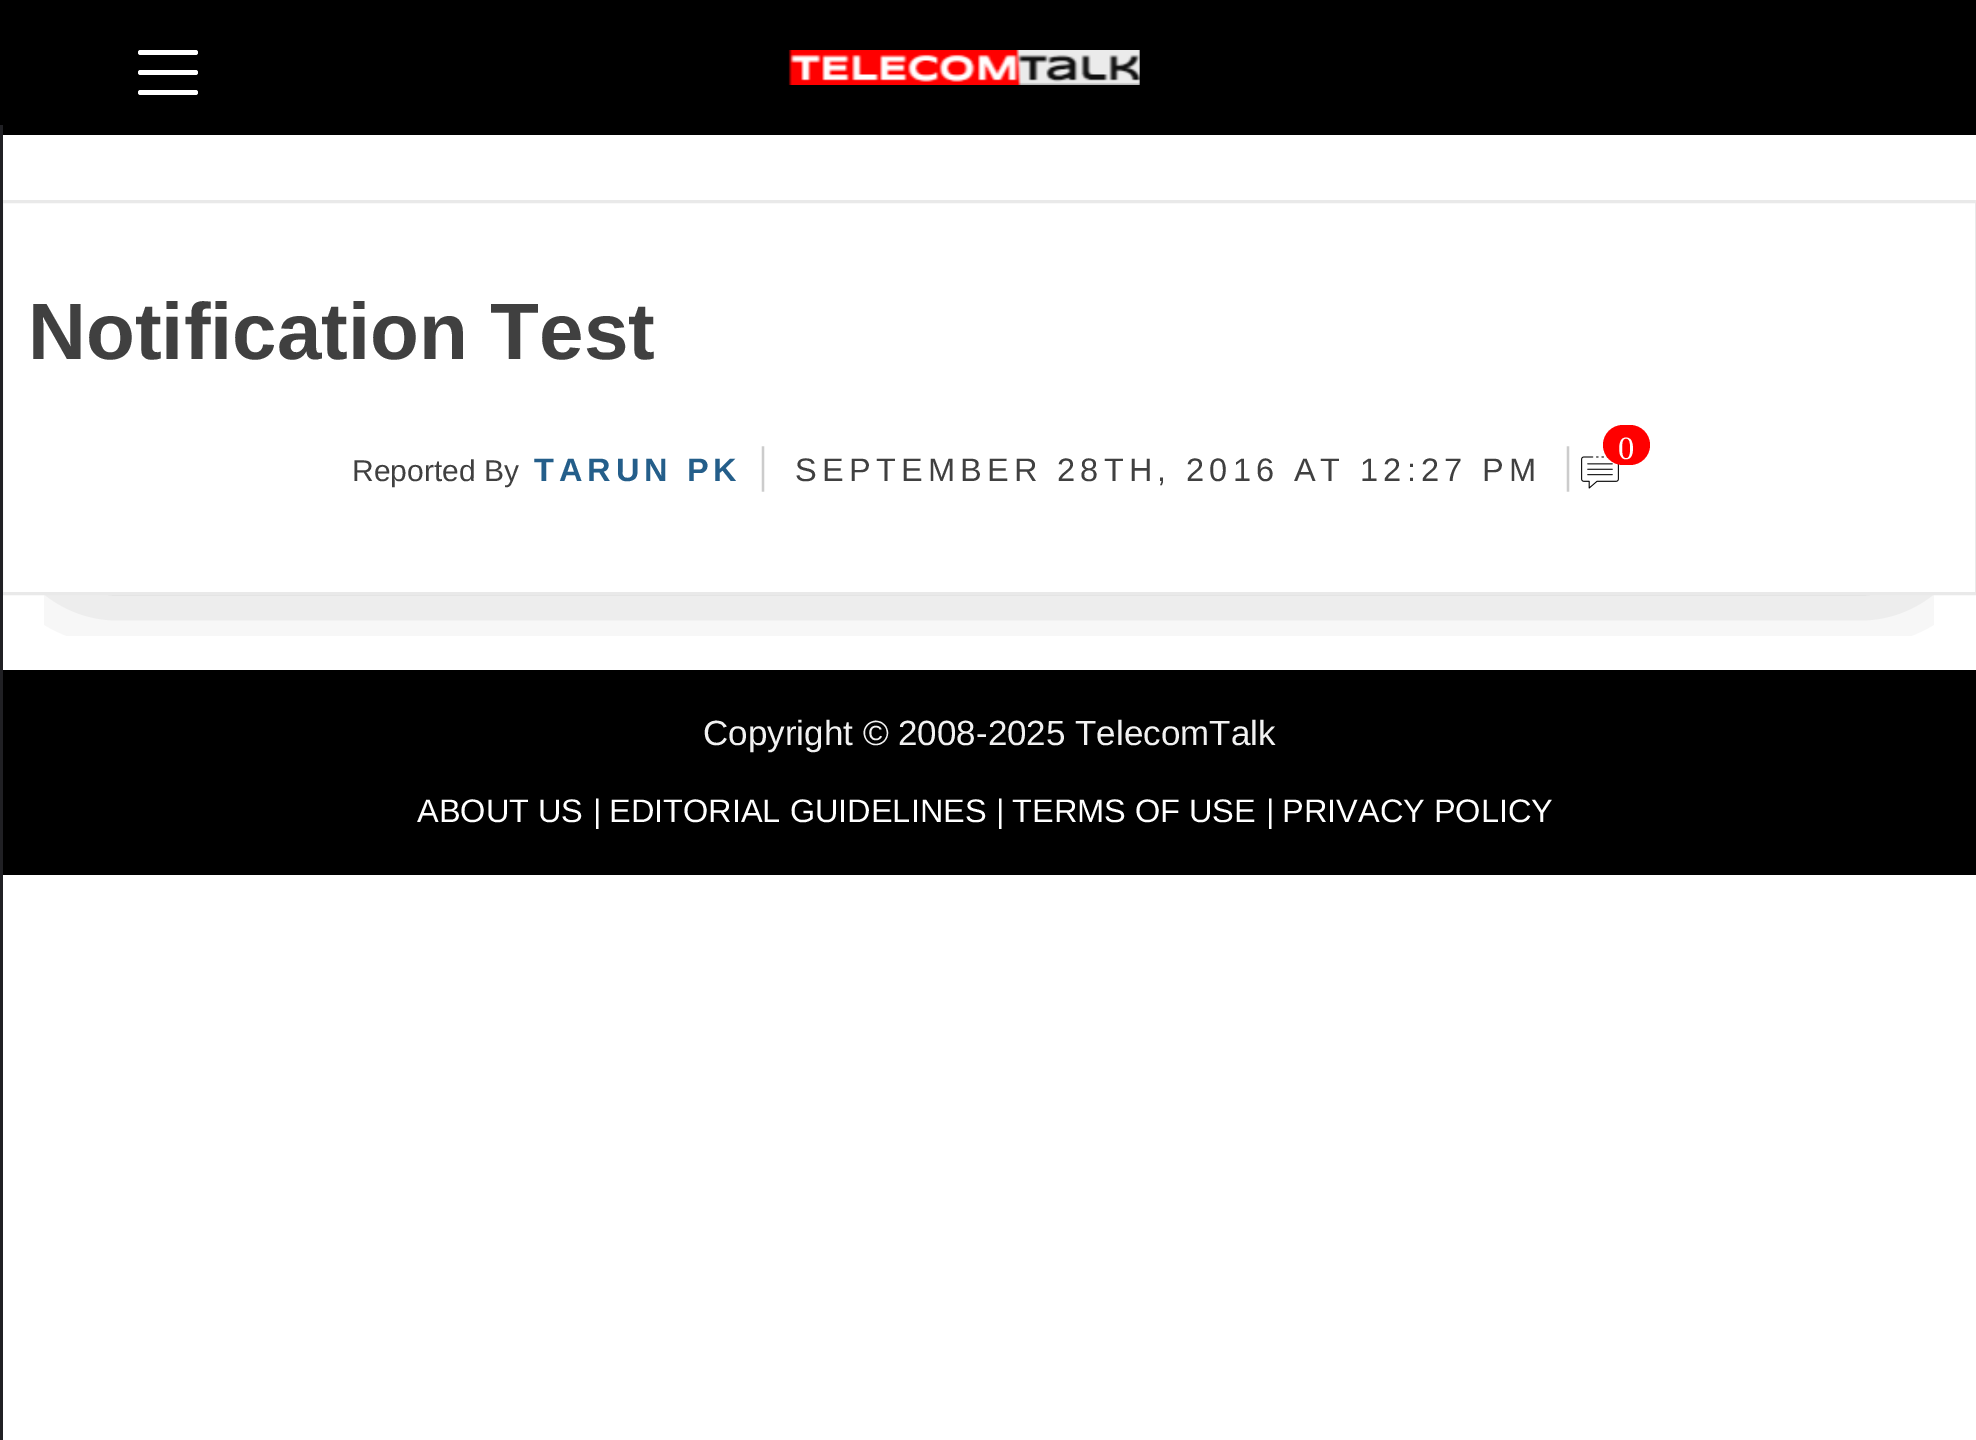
%!PS
<< /PageSize [1976 1440] /PageUsesTransparency true >> setpagedevice
/alpha { dup .setfillconstantalpha .setstrokeconstantalpha } def
/roundrect { 5 dict begin { /r /h /w /y /x } { exch def } forall
  x r add y moveto x w add y 2 copy h add r arct x w add y h add x 1 index r arct
  x y h add x y r arct x y 2 copy exch w add exch r arct closepath end } def
/shadow { 12 dict begin { /a /b /q /h /w /y /x } { exch def } forall gsave /was 0 def
  9 -2 -9 { dup b mul 4 div /e exch def 1 sub .425 mul 2.718 exch exp 1 add a .99 .min exch div /now exch def
    1 1 now sub 1 was sub div sub alpha /was now def
    w h .min e 2 mul add 0 gt { x e sub y e sub w e 2 mul add h e 2 mul add
      q e add b .6 mul add w h .min 2 div e add .min 0 .max roundrect fill } if } for grestore end } def
/picture { 5 dict begin { /h /w /y /x /name } { exch def } forall
  gsave x y translate w h scale
  w h 8 [w 0 0 h 0 0] name (r) file false 3 colorimage grestore end } def
0 .pushpdf14devicefilter
0 1440 translate 1 -1 scale
4 setmiterlimit
1 setgray
0 0 1976 1440 rectfill
0 setgray
0 0 1976 135 rectfill
1 setgray
138 50 60 5 2.5 roundrect fill
138 70 60 5 2.5 roundrect fill
138 90 60 5 2.5 roundrect fill
gsave
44 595 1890 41 rectclip
0 setgray
88 313 1802 220 0 50 1 shadow
grestore
0.914 setgray
3 setlinewidth
1.5 201.5 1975 392 rectstroke
0.125 0.125 0.141 setrgbcolor
0 125 3 1315 rectfill
(img1.rgb) 788 50 352 35 picture
/LiberationSans-Bold [80 0 0 -80 0 0] selectfont
0.251 setgray
28 359 moveto (Notification Test) show
/LiberationSans-Regular [30 0 0 -30 0 0] selectfont
352 481 moveto (Reported By) show
/LiberationSans-Bold [32.5 0 0 -32.5 0 0] selectfont
0.141 0.369 0.541 setrgbcolor
534 481 moveto 5 0 (TARUN PK) ashow
/LiberationSerif-Regular [50 0 0 -50 0 0] selectfont
0.8 setgray
758 481 moveto 5.25 0 (|) ashow
/LiberationSans-Regular [32.5 0 0 -32.5 0 0] selectfont
0.251 setgray
795 481 moveto 5.25 0 (SEPTEMBER 28TH, 2016 AT 12:27 PM) ashow
/LiberationSerif-Regular [50 0 0 -50 0 0] selectfont
0.8 setgray
1563 481 moveto 5.25 0 (|) ashow
(img2.rgb) 1581 456 38 33 picture
1 0 0 setrgbcolor
1603 425 47 40 20 roundrect fill
/LiberationSerif-Regular [32.5 0 0 -32.5 0 0] selectfont
1 setgray
1618 459 moveto (0) show
0 setgray
3 670 1973 205 rectfill
/LiberationSans-Regular [35 0 0 -35 0 0] selectfont
0.945 setgray
703 745 moveto (Copyright © 2008-2025 TelecomTalk) show
/LiberationSans-Regular [32.5 0 0 -32.5 0 0] selectfont
1 setgray
417 822 moveto (ABOUT US) show
593 822 moveto (|) show
609 822 moveto (EDITORIAL GUIDELINES) show
996 822 moveto (|) show
1012 822 moveto (TERMS OF USE) show
1266 822 moveto (|) show
1282 822 moveto (PRIVACY POLICY) show
.poppdf14devicefilter showpage
